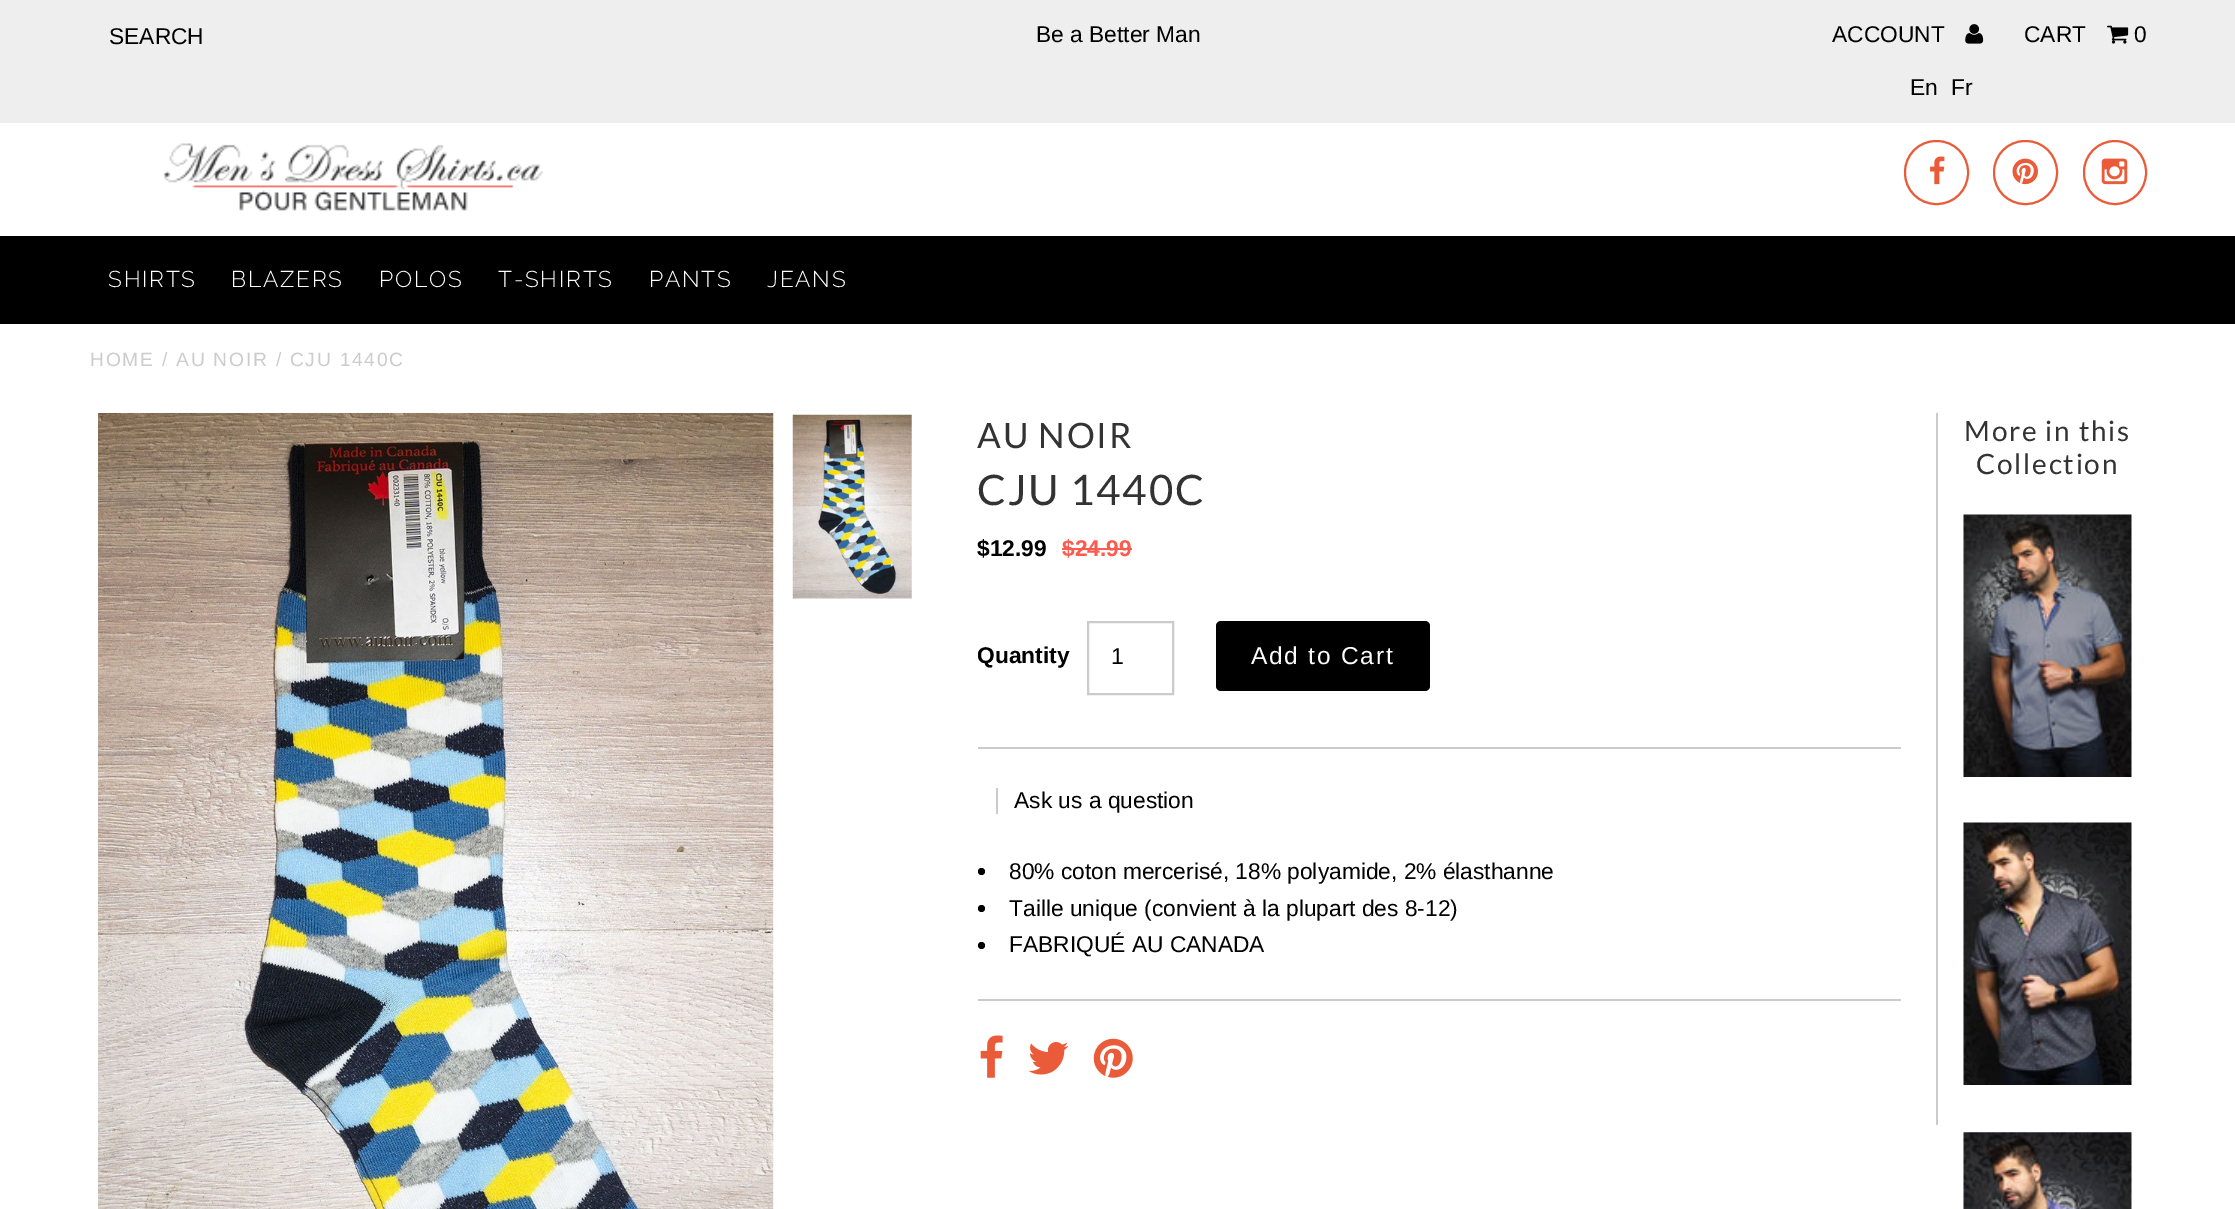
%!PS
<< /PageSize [2235 1209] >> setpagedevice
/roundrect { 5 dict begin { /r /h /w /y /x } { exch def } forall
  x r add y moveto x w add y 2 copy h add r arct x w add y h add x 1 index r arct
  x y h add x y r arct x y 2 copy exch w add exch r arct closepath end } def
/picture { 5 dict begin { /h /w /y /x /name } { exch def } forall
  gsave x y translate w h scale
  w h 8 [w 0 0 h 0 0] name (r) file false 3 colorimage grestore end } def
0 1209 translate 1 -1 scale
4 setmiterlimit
1 setgray
0 0 2235 1209 rectfill
0.933 setgray
0 0 2235 123 rectfill
/LiberationSans-Regular [22.75 0 0 -22.75 0 0] selectfont
0 setgray
109 44 moveto (SEARCH) show
1036 42 moveto (Be a Better Man) show
1832 42 moveto (ACCOUNT) show
(img1.rgb) 1965 24 19 20 picture
2024 42 moveto (CART) show
(img2.rgb) 2107 25 22 19 picture
2134 42 moveto (0) show
1910 95 moveto (En) show
1951 95 moveto (Fr) show
(img3.rgb) 164 143 379 68 picture
0.918 0.357 0.227 setrgbcolor
2 setlinewidth
1905 141 63 63 31 roundrect stroke
(img4.rgb) 1930 156 15 29 picture
1994 141 63 63 31 roundrect stroke
(img5.rgb) 2012 158 26 27 picture
2084 141 62 63 31 roundrect stroke
(img6.rgb) 2101 158 27 27 picture
0 setgray
0 236 2235 88 rectfill
/Raleway-Light [22.75 0 0 -22.75 0 0] selectfont
1 setgray
108 287 moveto 1.75 0 (SHIRTS) ashow
231 287 moveto 1.75 0 (BLAZERS) ashow
379 287 moveto 1.75 0 (POLOS) ashow
498 287 moveto 1.75 0 (T-SHIRTS) ashow
649 287 moveto 1.75 0 (PANTS) ashow
767 287 moveto 1.75 0 (JEANS) ashow
/LiberationSans-Regular [19.25 0 0 -19.25 0 0] selectfont
0.8 setgray
90 366 moveto 1.75 0 (HOME / AU NOIR / CJU 1440C) ashow
(img7.rgb) 98 413 676 796 picture
(img8.rgb) 792 414 120 185 picture
0.796 setgray
1936 413 2 712 rectfill
/Lato-Regular [35 0 0 -35 0 0] selectfont
0.2 setgray
977 448 moveto 1.75 0 (AU NOIR) ashow
/Lato-Regular [42 0 0 -42 0 0] selectfont
977 505 moveto 1.75 0 (CJU 1440C) ashow
/LiberationSans-Bold [22.75 0 0 -22.75 0 0] selectfont
0 setgray
977 556 moveto ($12.99) show
0.988 0.357 0.31 setrgbcolor
1062 556 moveto ($24.99) show
1062 548 70 2 rectfill
0.796 setgray
978 747 923 2 rectfill
0 setgray
977 663 moveto (Quantity) show
0.796 setgray
1088 622 85 72 rectstroke
/LiberationSans-Regular [23 0 0 -23 0 0] selectfont
0 setgray
1111 664 moveto (1) show
1216 621 214 70 5 roundrect fill
/LiberationSans-Regular [24.5 0 0 -24.5 0 0] selectfont
1 setgray
1251 664 moveto 1.75 0 (Add to Cart) ashow
0.796 setgray
996 788 2 26 rectfill
/LiberationSans-Regular [22.75 0 0 -22.75 0 0] selectfont
0 setgray
1014 808 moveto (Ask us a question) show
newpath 981.5 871.5 3.5 0 360 arc closepath fill
1009 879 moveto (80% coton mercerisé, 18% polyamide, 2% élasthanne) show
newpath 981.5 908.5 3.5 0 360 arc closepath fill
1009 916 moveto (Taille unique \(convient à la plupart des 8-12\)) show
newpath 981.5 945.5 3.5 0 360 arc closepath fill
1009 952 moveto (FABRIQUÉ AU CANADA) show
0.796 setgray
978 999 923 2 rectfill
(img9.rgb) 980 1035 23 43 picture
(img10.rgb) 1028 1042 41 33 picture
(img11.rgb) 1093 1038 40 40 picture
/Lato-Regular [28 0 0 -28 0 0] selectfont
0.2 setgray
1964 441 moveto 1.75 0 (More in this) ashow
1976 474 moveto 1.75 0 (Collection) ashow
(img12.rgb) 1963 514 169 263 picture
(img13.rgb) 1963 822 169 263 picture
(img14.rgb) 1963 1132 169 77 picture
showpage
